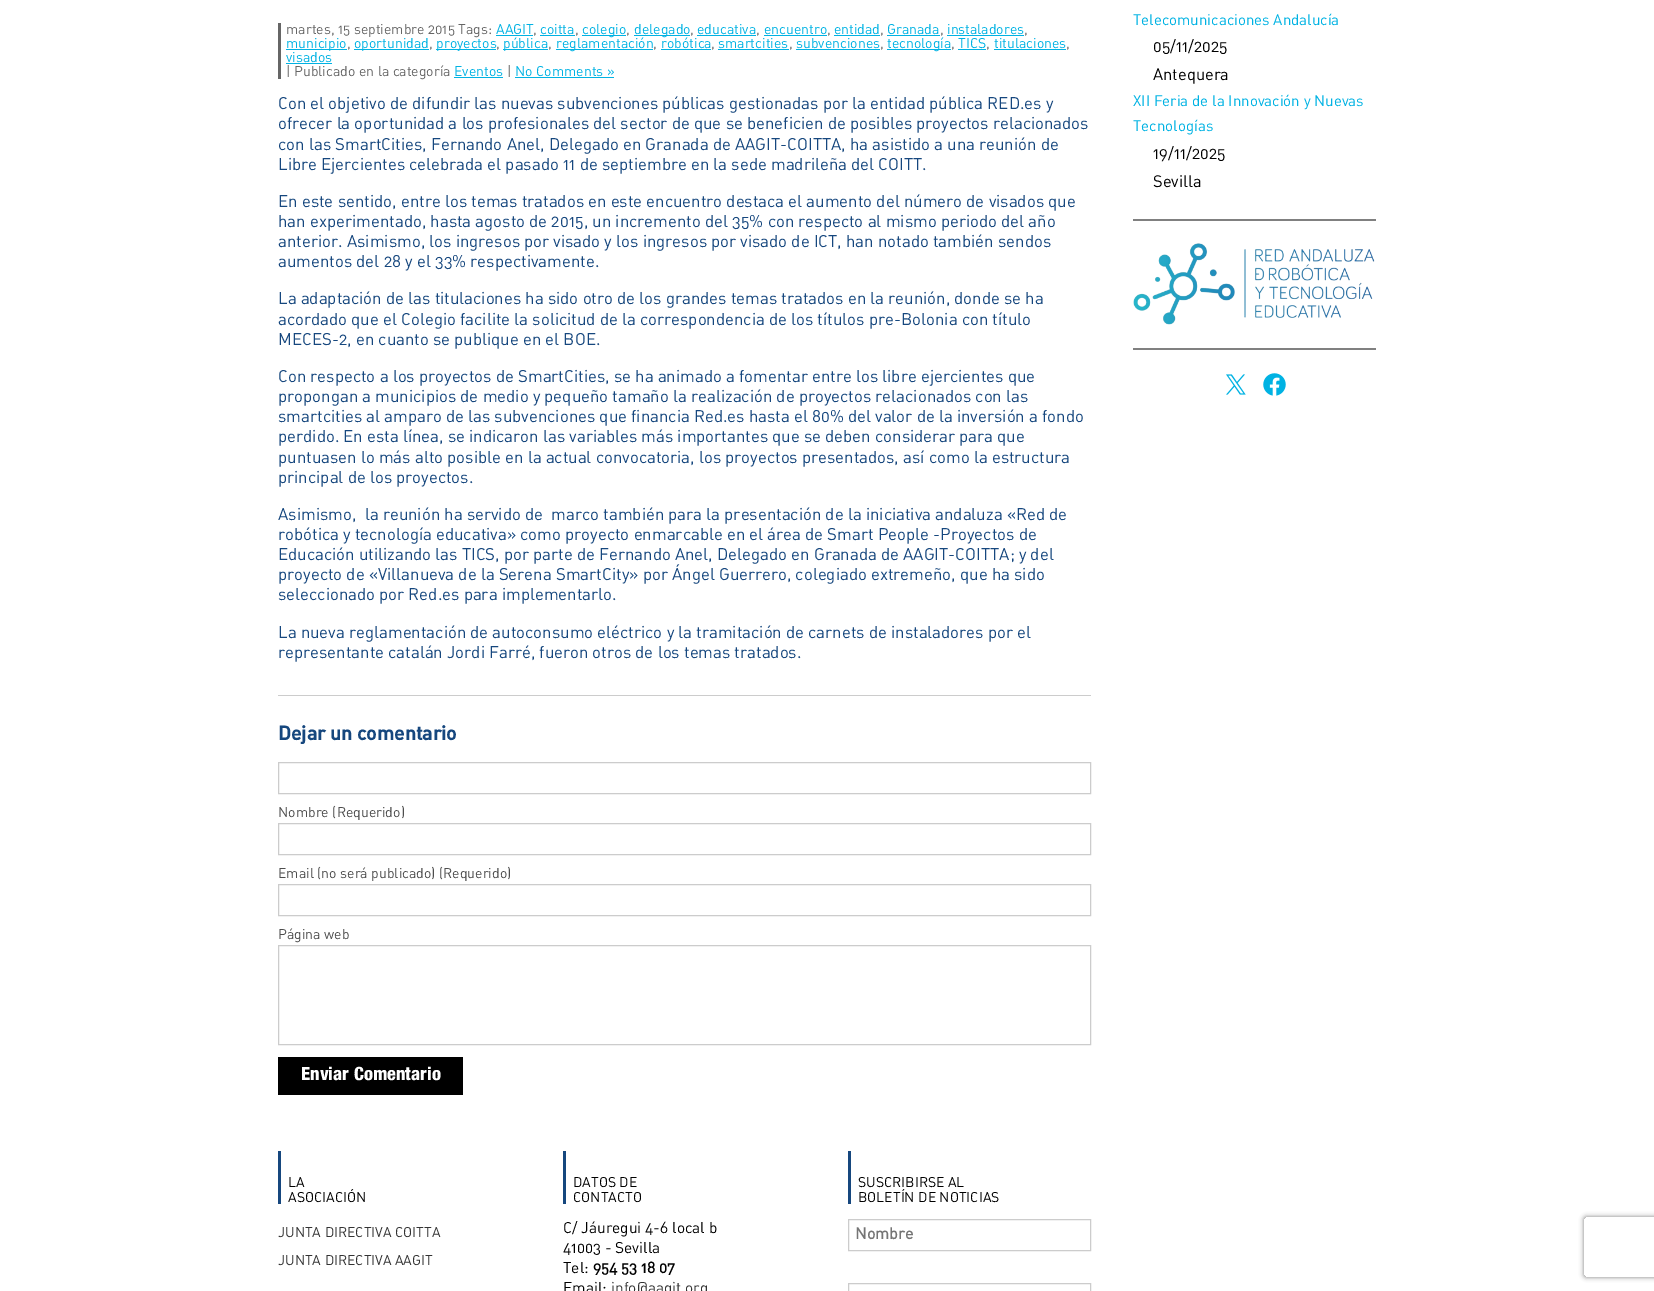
%!PS
<< /PageSize [1654 1291] /PageUsesTransparency true >> setpagedevice
/alpha { dup .setfillconstantalpha .setstrokeconstantalpha } def
/roundrect { 5 dict begin { /r /h /w /y /x } { exch def } forall
  x r add y moveto x w add y 2 copy h add r arct x w add y h add x 1 index r arct
  x y h add x y r arct x y 2 copy exch w add exch r arct closepath end } def
/shadow { 12 dict begin { /a /b /q /h /w /y /x } { exch def } forall gsave /was 0 def
  9 -2 -9 { dup b mul 4 div /e exch def 1 sub .425 mul 2.718 exch exp 1 add a .99 .min exch div /now exch def
    1 1 now sub 1 was sub div sub alpha /was now def
    w h .min e 2 mul add 0 gt { x e sub y e sub w e 2 mul add h e 2 mul add
      q e add b .6 mul add w h .min 2 div e add .min 0 .max roundrect fill } if } for grestore end } def
/picture { 5 dict begin { /h /w /y /x /name } { exch def } forall
  gsave x y translate w h scale
  w h 8 [w 0 0 h 0 0] name (r) file false 3 colorimage grestore end } def
0 .pushpdf14devicefilter
0 1291 translate 1 -1 scale
4 setmiterlimit
1 setgray
0 0 1654 1291 rectfill
0.4 setgray
278 23 3 56 rectfill
/DIN-Regular [14 0 0 -14 0 0] selectfont
286 34 moveto (martes, 15 septiembre 2015 Tags:) show
0 0.698 0.89 setrgbcolor
496 34 moveto (AAGIT) show
496 35 37 1 rectfill
0.4 setgray
533 34 moveto (,) show
0 0.698 0.89 setrgbcolor
540 34 moveto (coitta) show
540 35 35 1 rectfill
0.4 setgray
575 34 moveto (,) show
0 0.698 0.89 setrgbcolor
582 35 44 1 rectfill
582 34 moveto (colegio) show
0.4 setgray
626 34 moveto (,) show
0 0.698 0.89 setrgbcolor
634 35 56 1 rectfill
634 34 moveto (delegado) show
0.4 setgray
690 34 moveto (,) show
0 0.698 0.89 setrgbcolor
697 34 moveto (educativa) show
697 35 59 1 rectfill
0.4 setgray
756 34 moveto (,) show
0 0.698 0.89 setrgbcolor
764 34 moveto (encuentro) show
764 35 63 1 rectfill
0.4 setgray
827 34 moveto (,) show
0 0.698 0.89 setrgbcolor
834 34 moveto (entidad) show
834 35 46 1 rectfill
0.4 setgray
880 34 moveto (,) show
0 0.698 0.89 setrgbcolor
887 34 moveto (Granada) show
887 35 53 1 rectfill
0.4 setgray
940 34 moveto (,) show
0 0.698 0.89 setrgbcolor
947 34 moveto (instaladores) show
947 35 77 1 rectfill
0.4 setgray
1024 34 moveto (,) show
0 0.698 0.89 setrgbcolor
286 49 61 1 rectfill
286 48 moveto (municipio) show
0.4 setgray
347 48 moveto (,) show
0 0.698 0.89 setrgbcolor
354 49 75 1 rectfill
354 48 moveto (oportunidad) show
0.4 setgray
429 48 moveto (,) show
0 0.698 0.89 setrgbcolor
436 49 60 1 rectfill
436 48 moveto (proyectos) show
0.4 setgray
496 48 moveto (,) show
0 0.698 0.89 setrgbcolor
503 49 45 1 rectfill
503 48 moveto (pública) show
0.4 setgray
548 48 moveto (,) show
0 0.698 0.89 setrgbcolor
556 49 97 1 rectfill
556 48 moveto (reglamentación) show
0.4 setgray
653 48 moveto (,) show
0 0.698 0.89 setrgbcolor
661 48 moveto (robótica) show
661 49 50 1 rectfill
0.4 setgray
711 48 moveto (,) show
0 0.698 0.89 setrgbcolor
718 48 moveto (smartcities) show
718 49 71 1 rectfill
0.4 setgray
789 48 moveto (,) show
0 0.698 0.89 setrgbcolor
796 48 moveto (subvenciones) show
796 49 84 1 rectfill
0.4 setgray
880 48 moveto (,) show
0 0.698 0.89 setrgbcolor
887 49 64 1 rectfill
887 48 moveto (tecnología) show
0.4 setgray
951 48 moveto (,) show
0 0.698 0.89 setrgbcolor
958 48 moveto (TICS) show
958 49 28 1 rectfill
0.4 setgray
986 48 moveto (,) show
0 0.698 0.89 setrgbcolor
994 48 moveto (titulaciones) show
994 49 72 1 rectfill
0.4 setgray
1066 48 moveto (,) show
0 0.698 0.89 setrgbcolor
286 62 moveto (visados) show
286 63 46 1 rectfill
0.4 setgray
286 76 moveto (| Publicado en la categoría) show
0 0.698 0.89 setrgbcolor
454 76 moveto (Eventos) show
454 77 49 1 rectfill
0.4 setgray
507 76 moveto (|) show
0 0.698 0.89 setrgbcolor
515 76 moveto (No Comments ») show
515 77 99 1 rectfill
0.8 setgray
278 695 813 1 rectfill
/DIN-Regular [16.8 0 0 -16.8 0 0] selectfont
0.086 0.278 0.494 setrgbcolor
278 109 moveto (Con el objetivo de difundir las nuevas subvenciones públicas gestionadas por la entidad pública RED.es y) show
278 129 moveto (ofrecer la oportunidad a los profesionales del sector de que se beneficien de posibles proyectos relacionados) show
278 150 moveto (con las SmartCities, Fernando Anel, Delegado en Granada de AAGIT-COITTA, ha asistido a una reunión de) show
278 170 moveto (Libre Ejercientes celebrada el pasado 11 de septiembre en la sede madrileña del COITT.) show
278 207 moveto (En este sentido, entre los temas tratados en este encuentro destaca el aumento del número de visados que) show
278 227 moveto (han experimentado, hasta agosto de 2015, un incremento del 35% con respecto al mismo periodo del año) show
278 247 moveto (anterior. Asimismo, los ingresos por visado y los ingresos por visado de ICT, han notado también sendos) show
278 267 moveto (aumentos del 28 y el 33% respectivamente.) show
278 304 moveto (La adaptación de las titulaciones ha sido otro de los grandes temas tratados en la reunión, donde se ha) show
278 325 moveto (acordado que el Colegio facilite la solicitud de la correspondencia de los títulos pre-Bolonia con título) show
278 345 moveto (MECES-2, en cuanto se publique en el BOE.) show
278 382 moveto (Con respecto a los proyectos de SmartCities, se ha animado a fomentar entre los libre ejercientes que) show
278 402 moveto (propongan a municipios de medio y pequeño tamaño la realización de proyectos relacionados con las) show
278 422 moveto (smartcities al amparo de las subvenciones que financia Red.es hasta el 80% del valor de la inversión a fondo) show
278 442 moveto (perdido. En esta línea, se indicaron las variables más importantes que se deben considerar para que) show
278 463 moveto (puntuasen lo más alto posible en la actual convocatoria, los proyectos presentados, así como la estructura) show
278 483 moveto (principal de los proyectos.) show
278 520 moveto (Asimismo,  la reunión ha servido de  marco también para la presentación de la iniciativa andaluza «Red de) show
278 540 moveto (robótica y tecnología educativa» como proyecto enmarcable en el área de Smart People -Proyectos de) show
278 560 moveto (Educación utilizando las TICS, por parte de Fernando Anel, Delegado en Granada de AAGIT-COITTA; y del) show
278 580 moveto (proyecto de «Villanueva de la Serena SmartCity» por Ángel Guerrero, colegiado extremeño, que ha sido) show
278 600 moveto (seleccionado por Red.es para implementarlo.) show
278 638 moveto (La nueva reglamentación de autoconsumo eléctrico y la tramitación de carnets de instaladores por el) show
278 658 moveto (representante catalán Jordi Farré, fueron otros de los temas tratados.) show
/DIN-Bold [19.5 0 0 -19.5 0 0] selectfont
278 740 moveto (Dejar un comentario) show
0.8 setgray
278.5 762.5 812 31 rectstroke
/DIN-Regular [14 0 0 -14 0 0] selectfont
0.302 setgray
278 817 moveto (Nombre \(Requerido\)) show
0.8 setgray
278.5 823.5 812 31 rectstroke
0.302 setgray
278 878 moveto (Email \(no será publicado\) \(Requerido\)) show
0.8 setgray
278.5 884.5 812 31 rectstroke
0.302 setgray
278 939 moveto (Página web) show
0.8 setgray
278.5 945.5 812 99 rectstroke
0 setgray
278 1057 185 38 rectfill
/HelveticaNeue-Bold [18.25 0 0 -18.25 0 0] selectfont
1 setgray
301 1080 moveto (Enviar Comentario) show
/DIN-Regular [15.1 0 0 -15.1 0 0] selectfont
0 0.698 0.89 setrgbcolor
1133 25 moveto (Telecomunicaciones Andalucía) show
/DIN-Regular [16.5 0 0 -16.5 0 0] selectfont
0 setgray
1153 52 moveto (05/11/2025) show
1153 80 moveto (Antequera) show
/DIN-Regular [15.1 0 0 -15.1 0 0] selectfont
0 0.698 0.89 setrgbcolor
1133 106 moveto (XII Feria de la Innovación y Nuevas) show
1133 131 moveto (Tecnologías) show
/DIN-Regular [16.5 0 0 -16.5 0 0] selectfont
0 setgray
1153 159 moveto (19/11/2025) show
1153 187 moveto (Sevilla) show
0.502 setgray
1133 219 243 2 rectfill
(img1.rgb) 1133 243 242 82 picture
1133 348 243 2 rectfill
(img2.rgb) 1226 374 20 21 picture
(img3.rgb) 1263 373 23 23 picture
0.086 0.278 0.494 setrgbcolor
278 1151 3 53 rectfill
/DIN-Regular [14 0 0 -14 0 0] selectfont
0 setgray
288 1187 moveto (LA) show
288 1202 moveto (ASOCIACIÓN) show
0.2 setgray
278 1237 moveto (JUNTA DIRECTIVA COITTA) show
278 1265 moveto (JUNTA DIRECTIVA AAGIT) show
0.086 0.278 0.494 setrgbcolor
563 1151 3 53 rectfill
0 setgray
573 1187 moveto (DATOS DE) show
573 1202 moveto (CONTACTO) show
/DIN-Regular [15.4 0 0 -15.4 0 0] selectfont
563 1233 moveto (C/ Jáuregui 4-6 local b) show
563 1253 moveto (41003 - Sevilla) show
563 1273 moveto (Tel:) show
/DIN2-Bold [15.4 0 0 -15.4 0 0] selectfont
593 1273 moveto (954 53 18 07) show
/DIN-Regular [15.4 0 0 -15.4 0 0] selectfont
563 1293 moveto (Email:) show
0.2 setgray
611 1293 moveto (info@aagit.org) show
0.086 0.278 0.494 setrgbcolor
848 1151 3 53 rectfill
/DIN-Regular [14 0 0 -14 0 0] selectfont
0 setgray
858 1187 moveto (SUSCRIBIRSE AL) show
858 1202 moveto (BOLETÍN DE NOTICIAS) show
0.8 setgray
848.5 1219.5 242 31 rectstroke
/DIN2-Bold [16 0 0 -16 0 0] selectfont
0.459 setgray
855 1239 moveto (Nombre) show
0.8 setgray
848.5 1283.5 242 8 rectstroke
gsave
newpath 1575 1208 moveto 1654 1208 lineto 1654 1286 lineto 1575 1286 lineto closepath 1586 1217 moveto 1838 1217 lineto 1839 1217 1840 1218 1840 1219 curveto 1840 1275 lineto 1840 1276 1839 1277 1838 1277 curveto 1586 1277 lineto 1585 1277 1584 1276 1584 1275 curveto 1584 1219 lineto 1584 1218 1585 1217 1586 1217 curveto closepath eoclip newpath
0.502 setgray
1584 1217 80 60 2 2.5 1 shadow
grestore
.poppdf14devicefilter showpage
